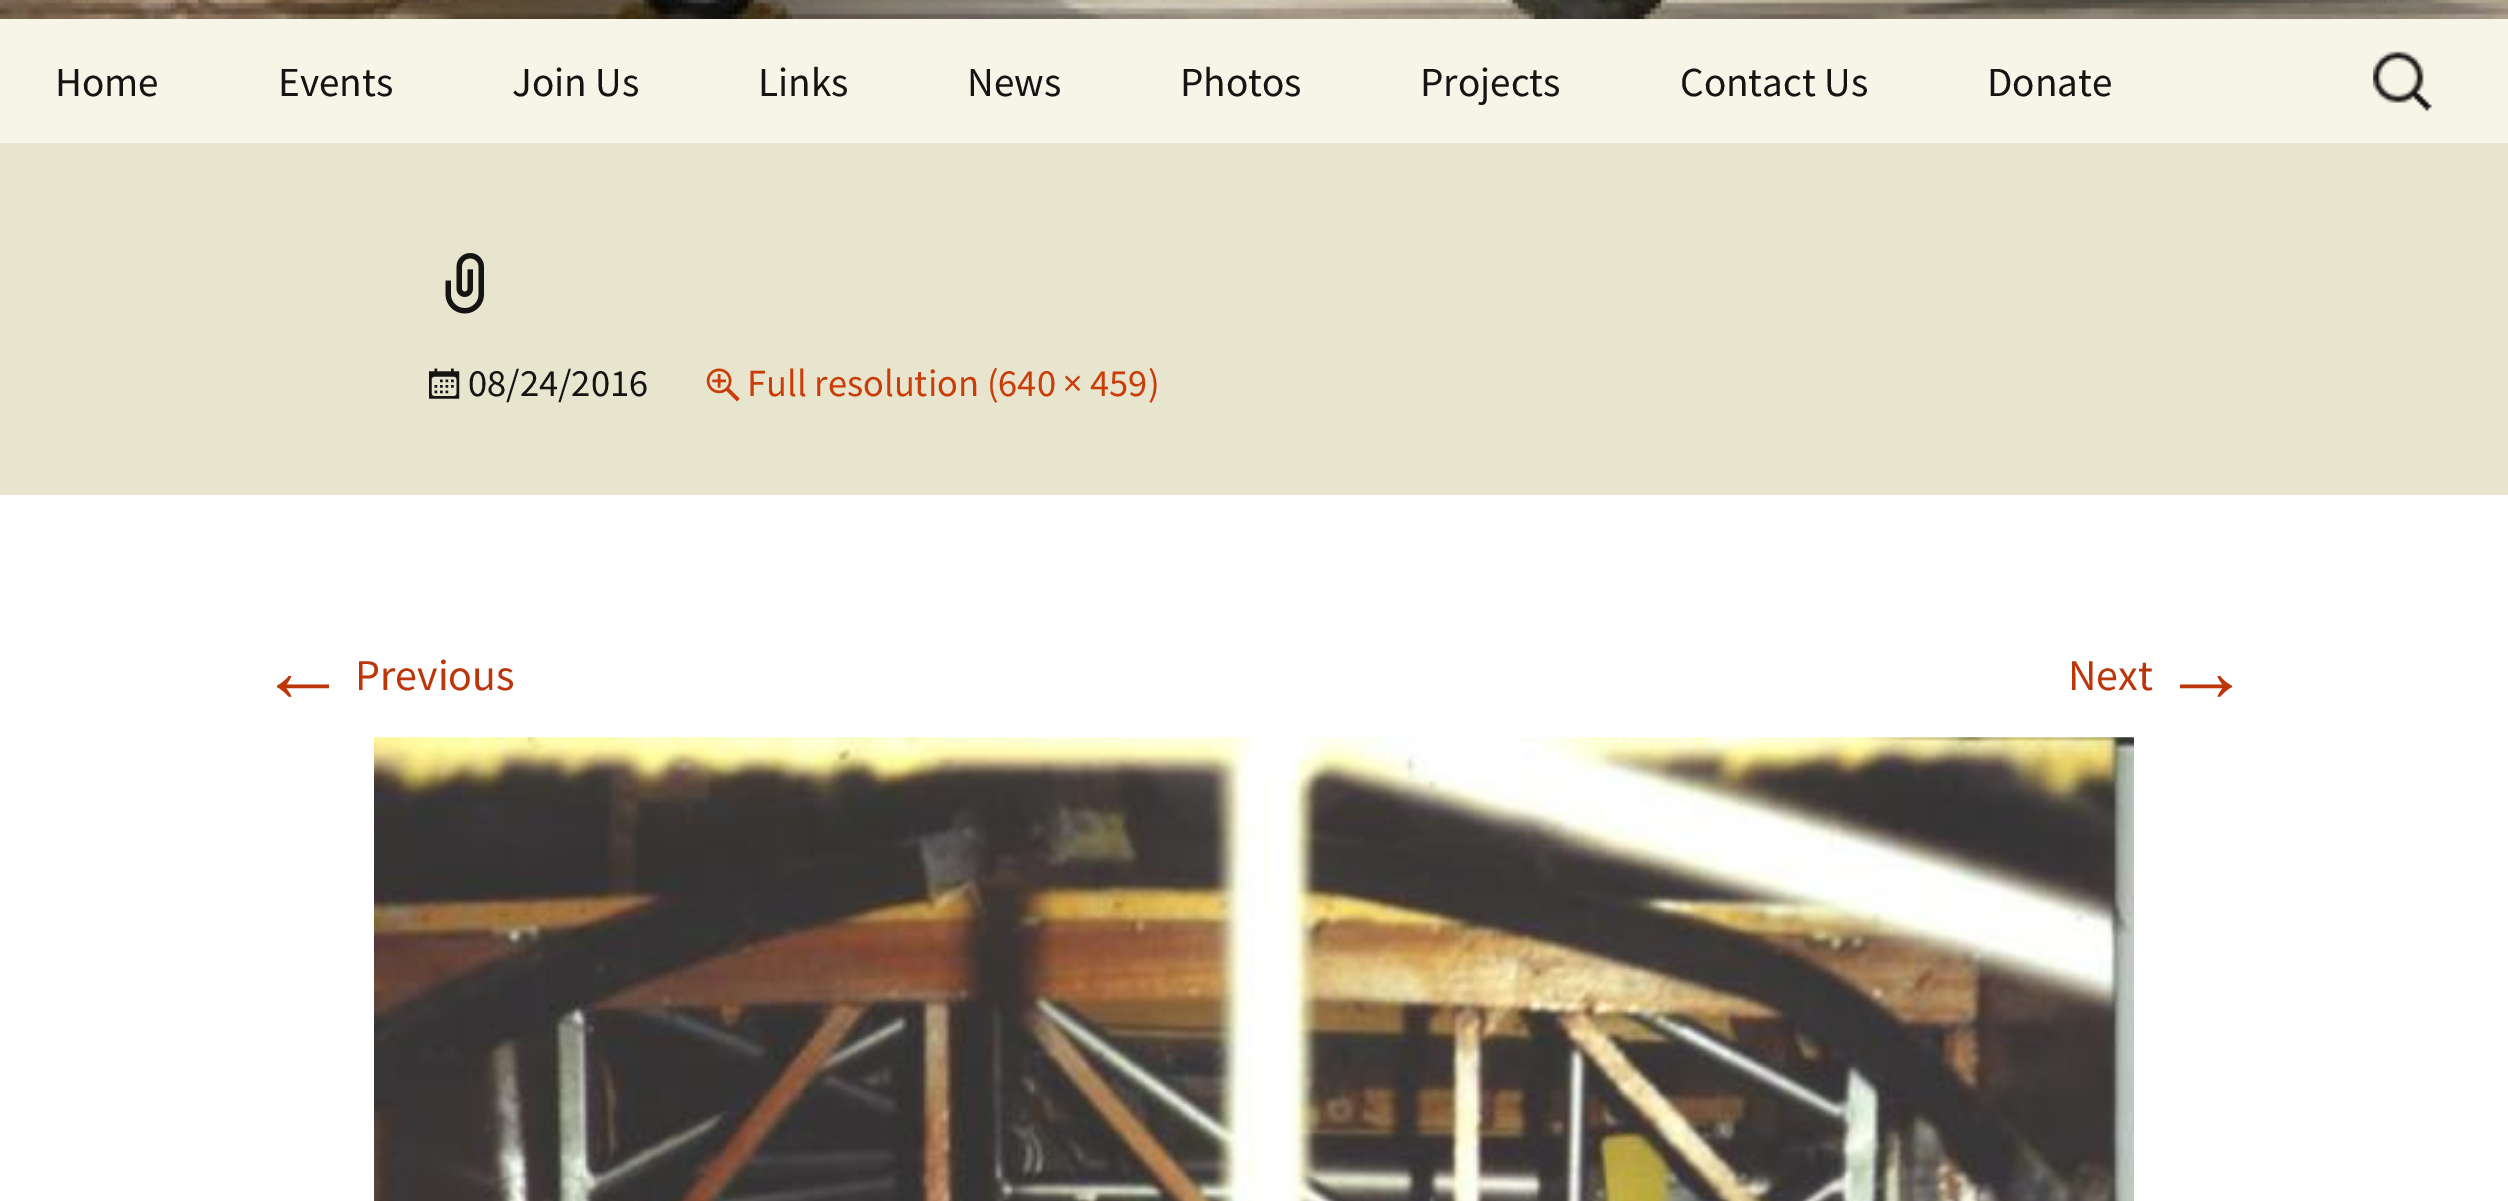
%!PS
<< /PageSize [2508 1201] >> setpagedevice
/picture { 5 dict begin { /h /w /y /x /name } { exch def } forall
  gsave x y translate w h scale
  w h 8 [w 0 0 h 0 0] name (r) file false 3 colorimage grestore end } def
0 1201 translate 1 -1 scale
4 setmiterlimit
1 setgray
0 0 2508 1201 rectfill
(img1.rgb) 0 0 2508 19 picture
0.969 0.961 0.906 setrgbcolor
0 19 2508 124 rectfill
/SourceSansPro-Regular [41.25 0 0 -41.25 0 0] selectfont
0.078 0.078 0.071 setrgbcolor
55 96 moveto (Home) show
278 96 moveto (Events) show
512 96 moveto (Join Us) show
758 96 moveto (Links) show
967 96 moveto (News) show
1180 96 moveto (Photos) show
1420 96 moveto (Projects) show
1680 96 moveto (Contact Us) show
1987 96 moveto (Donate) show
(img2.rgb) 2373 51 59 61 picture
0.91 0.898 0.808 setrgbcolor
0 143 2508 352 rectfill
(img3.rgb) 445 253 39 61 picture
(img4.rgb) 429 368 31 31 picture
/SourceSansPro-Regular [38.5 0 0 -38.5 0 0] selectfont
0.078 0.078 0.071 setrgbcolor
468 396 moveto (08/24/2016) show
(img5.rgb) 706 368 34 34 picture
0.792 0.235 0.031 setrgbcolor
747 396 moveto (Full resolution \(640 × 459\)) show
/LiberationSans-Regular [88 0 0 -88 0 0] selectfont
0.737 0.212 0.039 setrgbcolor
259 701 moveto (←) show
/SourceSansPro-Regular [44 0 0 -44 0 0] selectfont
355 690 moveto (Previous) show
2068 690 moveto (Next) show
/LiberationSans-Regular [88 0 0 -88 0 0] selectfont
2162 701 moveto (→) show
(img6.rgb) 374 737 1760 464 picture
showpage
